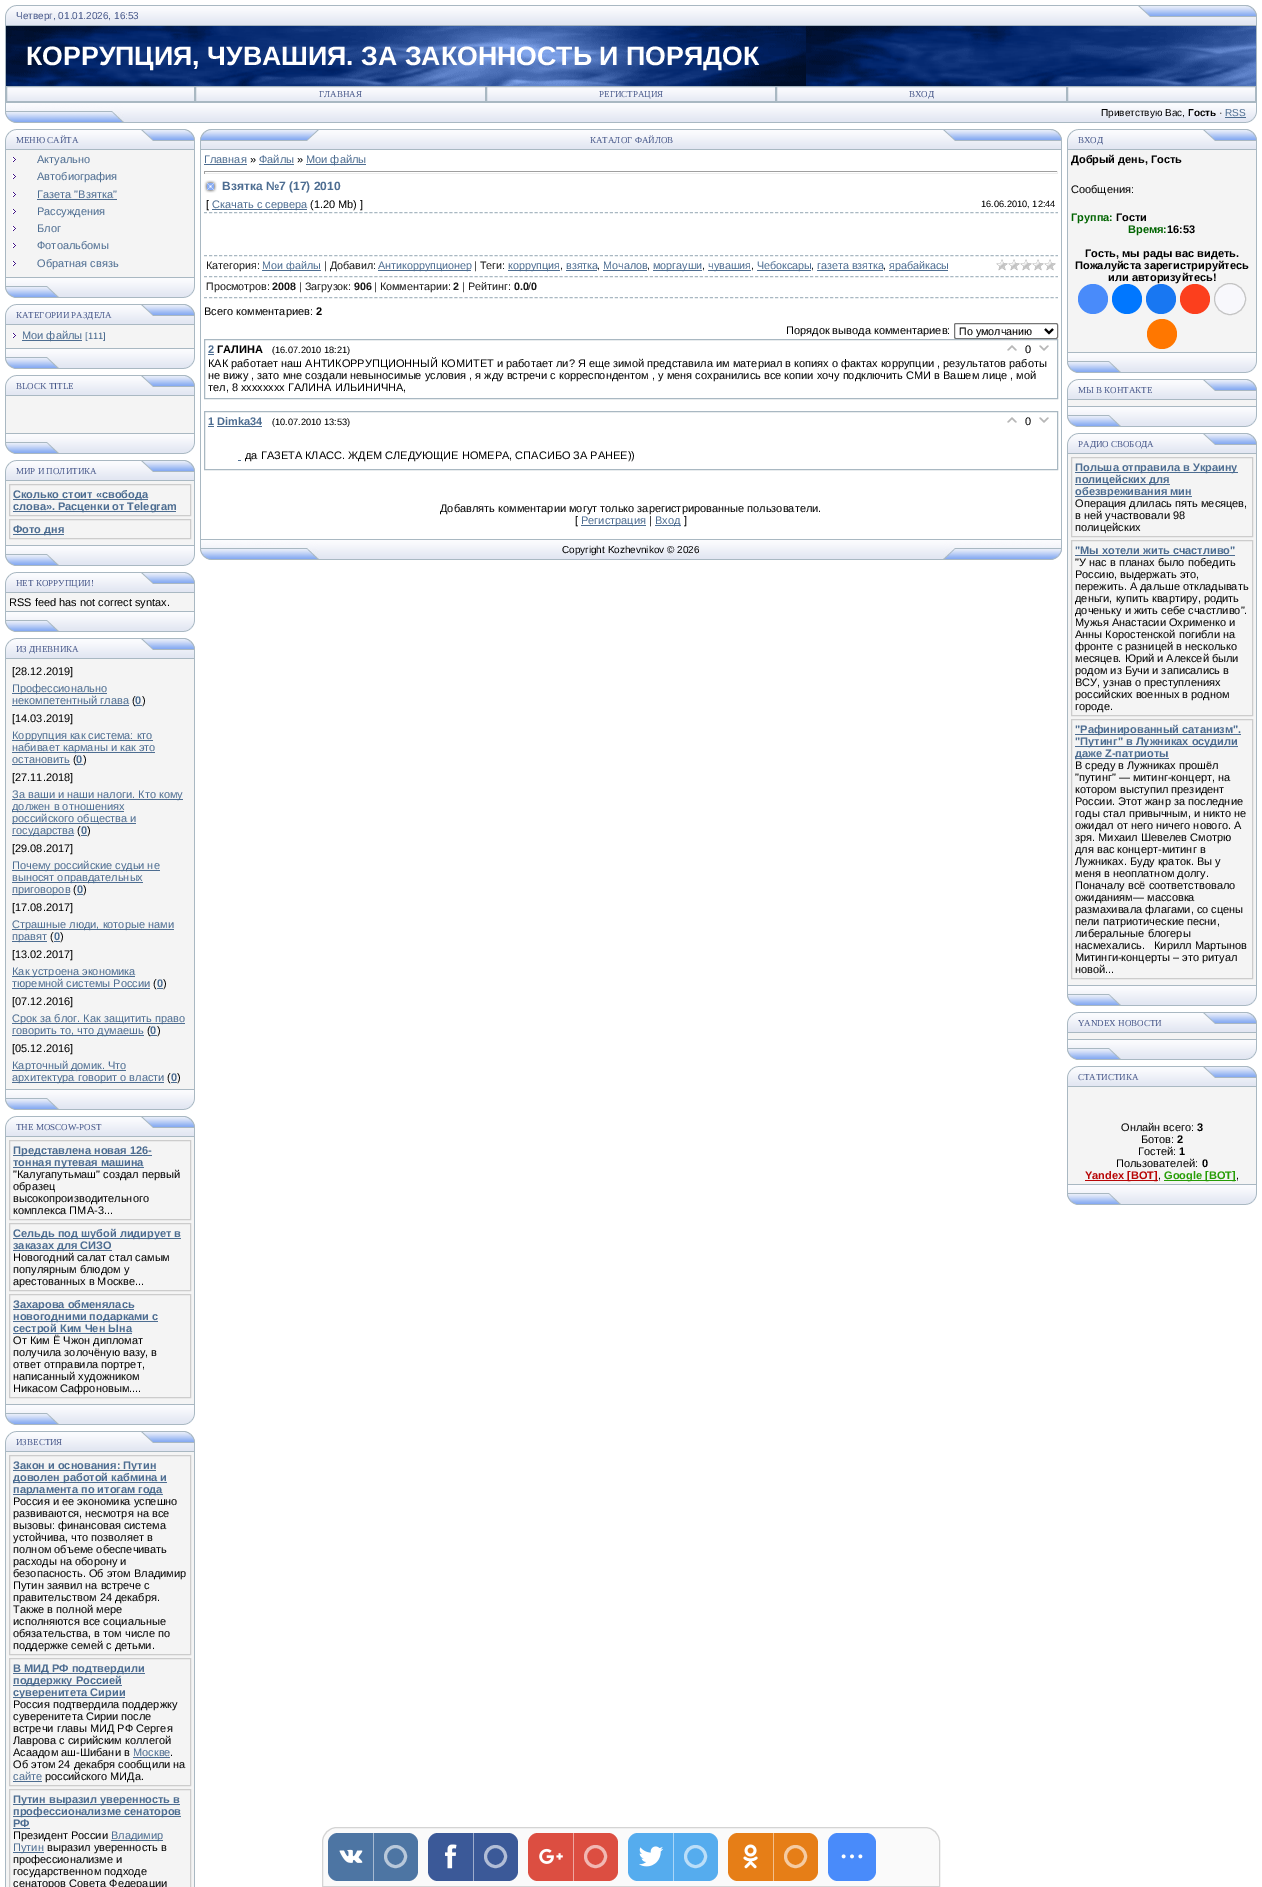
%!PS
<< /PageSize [1262 1887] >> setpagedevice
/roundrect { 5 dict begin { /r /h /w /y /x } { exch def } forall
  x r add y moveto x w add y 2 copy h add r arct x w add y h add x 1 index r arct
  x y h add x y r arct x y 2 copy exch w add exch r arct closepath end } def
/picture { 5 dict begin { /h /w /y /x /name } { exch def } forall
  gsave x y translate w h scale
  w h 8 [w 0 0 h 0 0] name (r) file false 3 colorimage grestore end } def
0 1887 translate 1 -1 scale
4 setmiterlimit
1 setgray
0 0 1262 1887 rectfill
(img1.rgb) 5 5 11 21 picture
(img2.rgb) 16 5 1122 21 picture
/LiberationSans-Regular [10 0 0 -10 0 0] selectfont
0.267 0.333 0.533 setrgbcolor
16 19 moveto (Четверг, 01.01.2026, 16:53) show
(img3.rgb) 1138 5 119 21 picture
0.663 0.722 0.761 setrgbcolor
1256 26 1 76 rectfill
5 26 1 76 rectfill
(img4.rgb) 6 26 1250 60 picture
/LiberationSans-Bold [26.7 0 0 -26.7 0 0] selectfont
1 setgray
26 65 moveto (КОРРУПЦИЯ, ЧУВАШИЯ. ЗА ЗАКОННОСТЬ И ПОРЯДОК) show
(img5.rgb) 7 87 187 14 picture
0.663 0.722 0.761 setrgbcolor
6.5 86.5 188 15 rectstroke
(img6.rgb) 196 87 289 14 picture
195.5 86.5 290 15 rectstroke
/LiberationSerif-Regular [9 0 0 -9 0 0] selectfont
0.267 0.333 0.533 setrgbcolor
319 97 moveto (ГЛАВНАЯ) show
(img7.rgb) 487 87 288 14 picture
0.663 0.722 0.761 setrgbcolor
486.5 86.5 289 15 rectstroke
0.267 0.333 0.533 setrgbcolor
599 97 moveto (РЕГИСТРАЦИЯ) show
(img6.rgb) 777 87 289 14 picture
0.663 0.722 0.761 setrgbcolor
776.5 86.5 290 15 rectstroke
0.267 0.333 0.533 setrgbcolor
909 97 moveto (ВХОД) show
(img5.rgb) 1068 87 187 14 picture
0.663 0.722 0.761 setrgbcolor
1067.5 86.5 188 15 rectstroke
(img8.rgb) 5 102 119 21 picture
(img2.rgb) 124 102 1122 21 picture
/LiberationSans-Regular [10 0 0 -10 0 0] selectfont
0 setgray
1101 116 moveto (Приветствую Вас,) show
/LiberationSans-Bold [10 0 0 -10 0 0] selectfont
1188 116 moveto (Гость) show
/LiberationSans-Regular [10 0 0 -10 0 0] selectfont
1219 116 moveto (·) show
0.302 0.427 0.569 setrgbcolor
1225 116 moveto (RSS) show
1225 117 21 1 rectfill
(img9.rgb) 1246 102 11 21 picture
(img1.rgb) 5 129 11 21 picture
(img10.rgb) 16 129 125 21 picture
/LiberationSerif-Regular [9 0 0 -9 0 0] selectfont
0.267 0.333 0.533 setrgbcolor
16 143 moveto (МЕНЮ САЙТА) show
(img11.rgb) 141 129 54 21 picture
0.957 setgray
6 150 188 127 rectfill
0.663 0.722 0.761 setrgbcolor
194 150 1 127 rectfill
5 150 1 127 rectfill
(img12.rgb) 12 157 4 5 picture
/LiberationSans-Regular [11 0 0 -11 0 0] selectfont
0.302 0.427 0.569 setrgbcolor
37 163 moveto (Актуально) show
(img12.rgb) 12 174 4 5 picture
37 180 moveto (Автобиография) show
(img12.rgb) 12 192 4 5 picture
37 198 moveto (Газета "Взятка") show
37 199 80 1 rectfill
(img12.rgb) 12 209 4 5 picture
37 215 moveto (Рассуждения) show
(img12.rgb) 12 226 4 5 picture
37 232 moveto (Блог) show
(img12.rgb) 12 243 4 5 picture
37 249 moveto (Фотоальбомы) show
(img12.rgb) 12 261 4 5 picture
37 267 moveto (Обратная связь) show
(img13.rgb) 5 277 190 21 picture
(img1.rgb) 5 304 11 21 picture
(img10.rgb) 16 304 125 21 picture
/LiberationSerif-Regular [9 0 0 -9 0 0] selectfont
0.267 0.333 0.533 setrgbcolor
16 318 moveto (КАТЕГОРИИ РАЗДЕЛА) show
(img11.rgb) 141 304 54 21 picture
0.957 setgray
6 325 188 23 rectfill
0.663 0.722 0.761 setrgbcolor
194 325 1 23 rectfill
5 325 1 23 rectfill
(img12.rgb) 12 333 4 5 picture
0.302 0.427 0.569 setrgbcolor
22 340 60 1 rectfill
/LiberationSans-Regular [11 0 0 -11 0 0] selectfont
22 339 moveto (Мои файлы) show
/LiberationSans-Regular [9.25 0 0 -9.25 0 0] selectfont
85 339 moveto ([111]) show
(img13.rgb) 5 348 190 21 picture
(img1.rgb) 5 375 11 21 picture
(img10.rgb) 16 375 125 21 picture
/LiberationSerif-Regular [9 0 0 -9 0 0] selectfont
0.267 0.333 0.533 setrgbcolor
16 389 moveto (BLOCK TITLE) show
(img11.rgb) 141 375 54 21 picture
0.957 setgray
6 396 188 37 rectfill
0.663 0.722 0.761 setrgbcolor
194 396 1 37 rectfill
5 396 1 37 rectfill
(img13.rgb) 5 433 190 21 picture
(img1.rgb) 5 460 11 21 picture
(img10.rgb) 16 460 125 21 picture
0.267 0.333 0.533 setrgbcolor
16 474 moveto (МИР И ПОЛИТИКА) show
(img11.rgb) 141 460 54 21 picture
0.957 setgray
6 481 188 64 rectfill
0.663 0.722 0.761 setrgbcolor
194 481 1 64 rectfill
5 481 1 64 rectfill
0.8 setgray
9.5 484.5 181 31 rectstroke
0.302 0.427 0.569 setrgbcolor
13 499 135 1 rectfill
/LiberationSans-Bold [11 0 0 -11 0 0] selectfont
13 498 moveto (Сколько стоит «свобода) show
13 511 163 1 rectfill
13 510 moveto (слова». Расценки от Telegram) show
0.8 setgray
9.5 519.5 181 19 rectstroke
0.302 0.427 0.569 setrgbcolor
13 534 51 1 rectfill
13 533 moveto (Фото дня) show
(img13.rgb) 5 545 190 21 picture
(img1.rgb) 5 572 11 21 picture
(img10.rgb) 16 572 125 21 picture
/LiberationSerif-Regular [9 0 0 -9 0 0] selectfont
0.267 0.333 0.533 setrgbcolor
16 586 moveto (НЕТ КОРРУПЦИИ!) show
(img11.rgb) 141 572 54 21 picture
0.957 setgray
6 593 188 18 rectfill
0.663 0.722 0.761 setrgbcolor
194 593 1 18 rectfill
5 593 1 18 rectfill
/LiberationSans-Regular [11 0 0 -11 0 0] selectfont
0 setgray
9 606 moveto (RSS feed has not correct syntax.) show
(img13.rgb) 5 611 190 21 picture
(img1.rgb) 5 638 11 21 picture
(img10.rgb) 16 638 125 21 picture
/LiberationSerif-Regular [9 0 0 -9 0 0] selectfont
0.267 0.333 0.533 setrgbcolor
16 652 moveto (ИЗ ДНЕВНИКА) show
(img11.rgb) 141 638 54 21 picture
0.957 setgray
6 659 188 430 rectfill
0.663 0.722 0.761 setrgbcolor
194 659 1 430 rectfill
5 659 1 430 rectfill
/LiberationSans-Regular [11 0 0 -11 0 0] selectfont
0 setgray
12 675 moveto ([28.12.2019]) show
0.302 0.427 0.569 setrgbcolor
12 693 95 1 rectfill
12 692 moveto (Профессионально) show
12 704 moveto (некомпетентный глава) show
12 705 117 1 rectfill
0 setgray
132 704 moveto (\() show
0.302 0.427 0.569 setrgbcolor
135 705 7 1 rectfill
/LiberationSans-Bold [11 0 0 -11 0 0] selectfont
135 704 moveto (0) show
/LiberationSans-Regular [11 0 0 -11 0 0] selectfont
0 setgray
142 704 moveto (\)) show
12 722 moveto ([14.03.2019]) show
0.302 0.427 0.569 setrgbcolor
12 740 141 1 rectfill
12 739 moveto (Коррупция как система: кто) show
12 752 143 1 rectfill
12 751 moveto (набивает карманы и как это) show
12 763 moveto (остановить) show
12 764 58 1 rectfill
0 setgray
73 763 moveto (\() show
0.302 0.427 0.569 setrgbcolor
76 764 7 1 rectfill
/LiberationSans-Bold [11 0 0 -11 0 0] selectfont
76 763 moveto (0) show
/LiberationSans-Regular [11 0 0 -11 0 0] selectfont
0 setgray
83 763 moveto (\)) show
12 781 moveto ([27.11.2018]) show
0.302 0.427 0.569 setrgbcolor
12 799 171 1 rectfill
12 798 moveto (За ваши и наши налоги. Кто кому) show
12 811 112 1 rectfill
12 810 moveto (должен в отношениях) show
12 823 124 1 rectfill
12 822 moveto (российского общества и) show
12 835 62 1 rectfill
12 834 moveto (государства) show
0 setgray
77 834 moveto (\() show
0.302 0.427 0.569 setrgbcolor
81 835 6 1 rectfill
/LiberationSans-Bold [11 0 0 -11 0 0] selectfont
81 834 moveto (0) show
/LiberationSans-Regular [11 0 0 -11 0 0] selectfont
0 setgray
87 834 moveto (\)) show
12 852 moveto ([29.08.2017]) show
0.302 0.427 0.569 setrgbcolor
12 870 148 1 rectfill
12 869 moveto (Почему российские судьи не) show
12 882 131 1 rectfill
12 881 moveto (выносят оправдательных) show
12 894 58 1 rectfill
12 893 moveto (приговоров) show
0 setgray
73 893 moveto (\() show
0.302 0.427 0.569 setrgbcolor
77 894 6 1 rectfill
/LiberationSans-Bold [11 0 0 -11 0 0] selectfont
77 893 moveto (0) show
/LiberationSans-Regular [11 0 0 -11 0 0] selectfont
0 setgray
83 893 moveto (\)) show
12 911 moveto ([17.08.2017]) show
0.302 0.427 0.569 setrgbcolor
12 929 162 1 rectfill
12 928 moveto (Страшные люди, которые нами) show
12 941 35 1 rectfill
12 940 moveto (правят) show
0 setgray
50 940 moveto (\() show
0.302 0.427 0.569 setrgbcolor
54 941 6 1 rectfill
/LiberationSans-Bold [11 0 0 -11 0 0] selectfont
54 940 moveto (0) show
/LiberationSans-Regular [11 0 0 -11 0 0] selectfont
0 setgray
60 940 moveto (\)) show
12 958 moveto ([13.02.2017]) show
0.302 0.427 0.569 setrgbcolor
12 976 123 1 rectfill
12 975 moveto (Как устроена экономика) show
12 988 138 1 rectfill
12 987 moveto (тюремной системы России) show
0 setgray
153 987 moveto (\() show
0.302 0.427 0.569 setrgbcolor
157 988 6 1 rectfill
/LiberationSans-Bold [11 0 0 -11 0 0] selectfont
157 987 moveto (0) show
/LiberationSans-Regular [11 0 0 -11 0 0] selectfont
0 setgray
163 987 moveto (\)) show
12 1005 moveto ([07.12.2016]) show
0.302 0.427 0.569 setrgbcolor
12 1023 173 1 rectfill
12 1022 moveto (Срок за блог. Как защитить право) show
12 1035 132 1 rectfill
12 1034 moveto (говорить то, что думаешь) show
0 setgray
147 1034 moveto (\() show
0.302 0.427 0.569 setrgbcolor
150 1035 7 1 rectfill
/LiberationSans-Bold [11 0 0 -11 0 0] selectfont
150 1034 moveto (0) show
/LiberationSans-Regular [11 0 0 -11 0 0] selectfont
0 setgray
157 1034 moveto (\)) show
12 1052 moveto ([05.12.2016]) show
0.302 0.427 0.569 setrgbcolor
12 1070 114 1 rectfill
12 1069 moveto (Карточный домик. Что) show
12 1082 152 1 rectfill
12 1081 moveto (архитектура говорит о власти) show
0 setgray
167 1081 moveto (\() show
0.302 0.427 0.569 setrgbcolor
171 1082 6 1 rectfill
/LiberationSans-Bold [11 0 0 -11 0 0] selectfont
171 1081 moveto (0) show
/LiberationSans-Regular [11 0 0 -11 0 0] selectfont
0 setgray
177 1081 moveto (\)) show
(img13.rgb) 5 1089 190 21 picture
(img1.rgb) 5 1116 11 21 picture
(img10.rgb) 16 1116 125 21 picture
/LiberationSerif-Regular [9 0 0 -9 0 0] selectfont
0.267 0.333 0.533 setrgbcolor
16 1130 moveto (THE MOSCOW-POST) show
(img11.rgb) 141 1116 54 21 picture
0.957 setgray
6 1137 188 267 rectfill
0.663 0.722 0.761 setrgbcolor
194 1137 1 267 rectfill
5 1137 1 267 rectfill
0.8 setgray
9.5 1140.5 181 79 rectstroke
0.302 0.427 0.569 setrgbcolor
13 1155 139 1 rectfill
/LiberationSans-Bold [11 0 0 -11 0 0] selectfont
13 1154 moveto (Представлена новая 126-) show
13 1167 131 1 rectfill
13 1166 moveto (тонная путевая машина) show
/LiberationSans-Regular [11 0 0 -11 0 0] selectfont
0 setgray
13 1178 moveto ("Калугапутьмаш" создал первый) show
13 1190 moveto (образец) show
13 1202 moveto (высокопроизводительного) show
13 1214 moveto (комплекса ПМА-3...) show
0.8 setgray
9.5 1223.5 181 67 rectstroke
0.302 0.427 0.569 setrgbcolor
13 1238 168 1 rectfill
/LiberationSans-Bold [11 0 0 -11 0 0] selectfont
13 1237 moveto (Сельдь под шубой лидирует в) show
13 1250 99 1 rectfill
13 1249 moveto (заказах для СИЗО) show
/LiberationSans-Regular [11 0 0 -11 0 0] selectfont
0 setgray
13 1261 moveto (Новогодний салат стал самым) show
13 1273 moveto (популярным блюдом у) show
13 1285 moveto (арестованных в Москве...) show
0.8 setgray
9.5 1294.5 181 103 rectstroke
0.302 0.427 0.569 setrgbcolor
13 1309 121 1 rectfill
/LiberationSans-Bold [11 0 0 -11 0 0] selectfont
13 1308 moveto (Захарова обменялась) show
13 1321 145 1 rectfill
13 1320 moveto (новогодними подарками с) show
13 1333 119 1 rectfill
13 1332 moveto (сестрой Ким Чен Ына) show
/LiberationSans-Regular [11 0 0 -11 0 0] selectfont
0 setgray
13 1344 moveto (От Ким Ё Чжон дипломат) show
13 1356 moveto (получила золочёную вазу, в) show
13 1368 moveto (ответ отправила портрет,) show
13 1380 moveto (написанный художником) show
13 1392 moveto (Никасом Сафроновым....) show
(img13.rgb) 5 1404 190 21 picture
(img1.rgb) 5 1431 11 21 picture
(img10.rgb) 16 1431 125 21 picture
/LiberationSerif-Regular [9 0 0 -9 0 0] selectfont
0.267 0.333 0.533 setrgbcolor
16 1445 moveto (ИЗВЕСТИЯ) show
(img11.rgb) 141 1431 54 21 picture
0.957 setgray
6 1452 188 435 rectfill
0.663 0.722 0.761 setrgbcolor
194 1452 1 435 rectfill
5 1452 1 435 rectfill
0.8 setgray
9.5 1455.5 181 199 rectstroke
0.302 0.427 0.569 setrgbcolor
13 1470 143 1 rectfill
/LiberationSans-Bold [11 0 0 -11 0 0] selectfont
13 1469 moveto (Закон и основания: Путин) show
13 1482 154 1 rectfill
13 1481 moveto (доволен работой кабмина и) show
13 1494 150 1 rectfill
13 1493 moveto (парламента по итогам года) show
/LiberationSans-Regular [11 0 0 -11 0 0] selectfont
0 setgray
13 1505 moveto (Россия и ее экономика успешно) show
13 1517 moveto (развиваются, несмотря на все) show
13 1529 moveto (вызовы: финансовая система) show
13 1541 moveto (устойчива, что позволяет в) show
13 1553 moveto (полном объеме обеспечивать) show
13 1565 moveto (расходы на оборону и) show
13 1577 moveto (безопасность. Об этом Владимир) show
13 1589 moveto (Путин заявил на встрече с) show
13 1601 moveto (правительством 24 декабря.) show
13 1613 moveto (Также в полной мере) show
13 1625 moveto (исполняются все социальные) show
13 1637 moveto (обязательства, в том числе по) show
13 1649 moveto (поддержке семей с детьми.) show
0.8 setgray
9.5 1658.5 181 127 rectstroke
0.302 0.427 0.569 setrgbcolor
13 1673 132 1 rectfill
/LiberationSans-Bold [11 0 0 -11 0 0] selectfont
13 1672 moveto (В МИД РФ подтвердили) show
13 1685 109 1 rectfill
13 1684 moveto (поддержку Россией) show
13 1697 112 1 rectfill
13 1696 moveto (суверенитета Сирии) show
/LiberationSans-Regular [11 0 0 -11 0 0] selectfont
0 setgray
13 1708 moveto (Россия подтвердила поддержку) show
13 1720 moveto (суверенитета Сирии после) show
13 1732 moveto (встречи главы МИД РФ Сергея) show
13 1744 moveto (Лаврова с сирийским коллегой) show
13 1756 moveto (Асаадом аш-Шибани в) show
0.302 0.427 0.569 setrgbcolor
133 1756 moveto (Москве) show
133 1757 37 1 rectfill
0 setgray
170 1756 moveto (.) show
13 1768 moveto (Об этом 24 декабря сообщили на) show
0.302 0.427 0.569 setrgbcolor
13 1780 moveto (сайте) show
13 1781 29 1 rectfill
0 setgray
45 1780 moveto (российского МИДа.) show
0.8 setgray
9.5 1789.5 181 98 rectstroke
0.302 0.427 0.569 setrgbcolor
13 1804 167 1 rectfill
/LiberationSans-Bold [11 0 0 -11 0 0] selectfont
13 1803 moveto (Путин выразил уверенность в) show
13 1816 168 1 rectfill
13 1815 moveto (профессионализме сенаторов) show
13 1827 moveto (РФ) show
13 1828 17 1 rectfill
/LiberationSans-Regular [11 0 0 -11 0 0] selectfont
0 setgray
13 1839 moveto (Президент России) show
0.302 0.427 0.569 setrgbcolor
111 1840 52 1 rectfill
111 1839 moveto (Владимир) show
13 1852 31 1 rectfill
13 1851 moveto (Путин) show
0 setgray
47 1851 moveto (выразил уверенность в) show
13 1863 moveto (профессионализме и) show
13 1875 moveto (государственном подходе) show
13 1887 moveto (сенаторов Совета Федерации) show
(img14.rgb) 200 129 119 21 picture
(img15.rgb) 319 129 624 21 picture
/LiberationSerif-Regular [9 0 0 -9 0 0] selectfont
0.267 0.333 0.533 setrgbcolor
590 143 moveto (КАТАЛОГ ФАЙЛОВ) show
(img3.rgb) 943 129 119 21 picture
0.663 0.722 0.761 setrgbcolor
1061 150 1 389 rectfill
200 150 1 389 rectfill
/LiberationSans-Regular [11 0 0 -11 0 0] selectfont
0.302 0.427 0.569 setrgbcolor
204 163 moveto (Главная) show
204 164 43 1 rectfill
0 setgray
250 163 moveto (») show
0.302 0.427 0.569 setrgbcolor
259 163 moveto (Файлы) show
259 164 35 1 rectfill
0 setgray
297 163 moveto (») show
0.302 0.427 0.569 setrgbcolor
306 164 60 1 rectfill
306 163 moveto (Мои файлы) show
0.624 setgray
204 171 854 1 rectfill
0.933 setgray
1057 171 1 3 rectfill
204 173 854 1 rectfill
0.624 setgray
204 171 1 3 rectfill
(img16.rgb) 204 180 13 13 picture
/LiberationSans-Bold [12 0 0 -12 0 0] selectfont
0.302 0.427 0.569 setrgbcolor
222 190 moveto (Взятка №7 \(17\) 2010) show
/LiberationSans-Regular [11 0 0 -11 0 0] selectfont
0 setgray
206 208 moveto ([) show
0.302 0.427 0.569 setrgbcolor
212 209 95 1 rectfill
212 208 moveto (Скачать с сервера) show
0 setgray
310 208 moveto (\(1.20 Mb\) ]) show
/LiberationSans-Regular [9.25 0 0 -9.25 0 0] selectfont
981 207 moveto (16.06.2010, 12:44) show
0.663 0.722 0.761 setrgbcolor
[3 2.01] 0 setdash
newpath 204 212.5 moveto 1058 212.5 lineto stroke
newpath 204 255.5 moveto 1058 255.5 lineto stroke
newpath 204 276.5 moveto 1058 276.5 lineto stroke
/LiberationSans-Regular [10.75 0 0 -10.75 0 0] selectfont
0.102 setgray
206 269 moveto (Категория:) show
0.302 0.427 0.569 setrgbcolor
262 270 59 1 rectfill
262 269 moveto (Мои файлы) show
0.102 setgray
324 269 moveto (| Добавил:) show
0.302 0.427 0.569 setrgbcolor
378 270 93 1 rectfill
378 269 moveto (Антикоррупционер) show
0.102 setgray
474 269 moveto (| Теги:) show
0.302 0.427 0.569 setrgbcolor
508 270 52 1 rectfill
508 269 moveto (коррупция) show
0.102 setgray
560 269 moveto (,) show
0.302 0.427 0.569 setrgbcolor
566 269 moveto (взятка) show
0.102 setgray
597 269 moveto (,) show
0.302 0.427 0.569 setrgbcolor
566 270 31 1 rectfill
603 269 moveto (Мочалов) show
0.102 setgray
647 269 moveto (,) show
0.302 0.427 0.569 setrgbcolor
603 270 44 1 rectfill
653 270 49 1 rectfill
653 269 moveto (моргауши) show
0.102 setgray
702 269 moveto (,) show
0.302 0.427 0.569 setrgbcolor
708 270 43 1 rectfill
708 269 moveto (чувашия) show
0.102 setgray
751 269 moveto (,) show
0.302 0.427 0.569 setrgbcolor
757 270 54 1 rectfill
757 269 moveto (Чебоксары) show
0.102 setgray
811 269 moveto (,) show
0.302 0.427 0.569 setrgbcolor
817 269 moveto (газета взятка) show
0.102 setgray
883 269 moveto (,) show
0.302 0.427 0.569 setrgbcolor
817 270 66 1 rectfill
889 270 59 1 rectfill
889 269 moveto (ярабайкасы) show
(img17.rgb) 996 259 60 12 picture
0.663 0.722 0.761 setrgbcolor
newpath 204 297.5 moveto 1058 297.5 lineto stroke
0.102 setgray
206 290 moveto (Просмотров:) show
/LiberationSans-Bold [10.75 0 0 -10.75 0 0] selectfont
272 290 moveto (2008) show
/LiberationSans-Regular [10.75 0 0 -10.75 0 0] selectfont
299 290 moveto (| Загрузок:) show
/LiberationSans-Bold [10.75 0 0 -10.75 0 0] selectfont
354 290 moveto (906) show
/LiberationSans-Regular [10.75 0 0 -10.75 0 0] selectfont
374 290 moveto (| Комментарии:) show
/LiberationSans-Bold [10.75 0 0 -10.75 0 0] selectfont
453 290 moveto (2) show
/LiberationSans-Regular [10.75 0 0 -10.75 0 0] selectfont
462 290 moveto (| Рейтинг:) show
/LiberationSans-Bold [10.75 0 0 -10.75 0 0] selectfont
514 290 moveto (0.0) show
/LiberationSans-Regular [10.75 0 0 -10.75 0 0] selectfont
528 290 moveto (/) show
/LiberationSans-Bold [10.75 0 0 -10.75 0 0] selectfont
531 290 moveto (0) show
/LiberationSans-Regular [11 0 0 -11 0 0] selectfont
0 setgray
204 315 moveto (Всего комментариев:) show
/LiberationSans-Bold [11 0 0 -11 0 0] selectfont
316 315 moveto (2) show
/LiberationSans-Regular [11 0 0 -11 0 0] selectfont
786 334 moveto (Порядок вывода комментариев:) show
0.463 setgray
[] 0 setdash
954.5 323.5 103 15 1.5 roundrect stroke
0 setgray
2 setlinewidth
newpath 1045 329 moveto 1049 333 lineto 1053 329 lineto stroke
/LiberationSans-Regular [10.75 0 0 -10.75 0 0] selectfont
959 335 moveto (По умолчанию) show
0.663 0.722 0.761 setrgbcolor
1 setlinewidth
204.5 339.5 853 59 rectstroke
/LiberationSans-Bold [11 0 0 -11 0 0] selectfont
0.302 0.427 0.569 setrgbcolor
208 353 moveto (2) show
208 354 6 1 rectfill
0 setgray
217 353 moveto (ГАЛИНА) show
/LiberationSans-Regular [9.25 0 0 -9.25 0 0] selectfont
272 353 moveto (\(16.07.2010 18:21\)) show
(img18.rgb) 1007 345 10 6 picture
/LiberationSans-Regular [11 0 0 -11 0 0] selectfont
1025 353 moveto (0) show
(img19.rgb) 1039 345 10 6 picture
208 367 moveto (КАК работает наш АНТИКОРРУПЦИОННЫЙ КОМИТЕТ и работает ли? Я еще зимой представила им материал в копиях о фактах коррупции , результатов работы) show
208 379 moveto (не вижу , зато мне создали невыносимые условия , я жду встречи с корреспондентом , у меня сохранились все копии хочу подключить СМИ в Вашем лице , мой) show
208 391 moveto (тел, 8 хххххххх ГАЛИНА ИЛЬИНИЧНА,) show
0.663 0.722 0.761 setrgbcolor
204.5 411.5 853 58 rectstroke
/LiberationSans-Bold [11 0 0 -11 0 0] selectfont
0.302 0.427 0.569 setrgbcolor
208 425 moveto (1 Dimka34) show
208 426 6 1 rectfill
/LiberationSans-Regular [9.25 0 0 -9.25 0 0] selectfont
0 setgray
272 425 moveto (\(10.07.2010 13:53\)) show
0.302 0.427 0.569 setrgbcolor
217 426 45 1 rectfill
(img18.rgb) 1007 417 10 6 picture
/LiberationSans-Regular [11 0 0 -11 0 0] selectfont
0 setgray
1025 425 moveto (0) show
(img19.rgb) 1039 417 10 6 picture
0.302 0.427 0.569 setrgbcolor
238 460 3 1 rectfill
0 setgray
245 459 moveto (да ГАЗЕТА КЛАСС. ЖДЕМ СЛЕДУЮЩИЕ НОМЕРА, СПАСИБО ЗА РАНЕЕ\)\)) show
440 512 moveto (Добавлять комментарии могут только зарегистрированные пользователи.) show
575 524 moveto ([) show
0.302 0.427 0.569 setrgbcolor
581 525 65 1 rectfill
581 524 moveto (Регистрация) show
0 setgray
649 524 moveto (|) show
0.302 0.427 0.569 setrgbcolor
655 525 26 1 rectfill
655 524 moveto (Вход) show
0 setgray
684 524 moveto (]) show
(img8.rgb) 200 539 119 21 picture
(img15.rgb) 319 539 624 21 picture
/LiberationSans-Regular [10 0 0 -10 0 0] selectfont
562 553 moveto (Copyright Kozhevnikov © 2026) show
(img20.rgb) 943 539 119 21 picture
(img1.rgb) 1067 129 11 21 picture
(img10.rgb) 1078 129 125 21 picture
/LiberationSerif-Regular [9 0 0 -9 0 0] selectfont
0.267 0.333 0.533 setrgbcolor
1078 143 moveto (ВХОД) show
(img11.rgb) 1203 129 54 21 picture
0.957 setgray
1068 150 188 202 rectfill
0.663 0.722 0.761 setrgbcolor
1256 150 1 202 rectfill
1067 150 1 202 rectfill
/LiberationSans-Bold [11 0 0 -11 0 0] selectfont
0 setgray
1071 163 moveto (Добрый день, Гость) show
/LiberationSans-Regular [11 0 0 -11 0 0] selectfont
1071 193 moveto (Сообщения:) show
/LiberationSans-Bold [11 0 0 -11 0 0] selectfont
0 0.392 0 setrgbcolor
1071 221 moveto (Группа:) show
0 setgray
1116 221 moveto (Гости) show
0 0.392 0 setrgbcolor
1128 233 moveto (Время:) show
0 setgray
1167 233 moveto (16:53) show
1085 257 moveto (Гость, мы рады вас видеть.) show
1075 269 moveto (Пожалуйста зарегистрируйтесь) show
1108 281 moveto (или авторизуйтесь!) show
0.286 0.545 0.98 setrgbcolor
newpath 1093 299 15 0 360 arc closepath fill
0 0.467 1 setrgbcolor
newpath 1127 299 15 0 360 arc closepath fill
0.094 0.467 0.949 setrgbcolor
newpath 1161 299 15 0 360 arc closepath fill
0.988 0.247 0.114 setrgbcolor
newpath 1195 299 15 0 360 arc closepath fill
0.973 0.973 0.988 setrgbcolor
newpath 1230 299 15.5 0 360 arc closepath gsave fill grestore
0.769 setgray
stroke
1 0.467 0 setrgbcolor
newpath 1162 334 15 0 360 arc closepath fill
(img13.rgb) 1067 352 190 21 picture
(img1.rgb) 1067 379 11 21 picture
(img10.rgb) 1078 379 125 21 picture
/LiberationSerif-Regular [9 0 0 -9 0 0] selectfont
0.267 0.333 0.533 setrgbcolor
1078 393 moveto (МЫ В КОНТАКТЕ) show
(img11.rgb) 1203 379 54 21 picture
0.957 setgray
1067 400 190 6 rectfill
0.663 0.722 0.761 setrgbcolor
1256 400 1 6 rectfill
1067 400 1 6 rectfill
(img13.rgb) 1067 406 190 21 picture
(img1.rgb) 1067 433 11 21 picture
(img10.rgb) 1078 433 125 21 picture
0.267 0.333 0.533 setrgbcolor
1078 447 moveto (РАДИО СВОБОДА) show
(img11.rgb) 1203 433 54 21 picture
0.957 setgray
1068 454 188 531 rectfill
0.663 0.722 0.761 setrgbcolor
1256 454 1 531 rectfill
1067 454 1 531 rectfill
0.8 setgray
1071.5 457.5 181 79 rectstroke
0.302 0.427 0.569 setrgbcolor
1075 472 163 1 rectfill
/LiberationSans-Bold [11 0 0 -11 0 0] selectfont
1075 471 moveto (Польша отправила в Украину) show
1075 484 95 1 rectfill
1075 483 moveto (полицейских для) show
1075 496 117 1 rectfill
1075 495 moveto (обезвреживания мин) show
/LiberationSans-Regular [11 0 0 -11 0 0] selectfont
0 setgray
1075 507 moveto (Операция длилась пять месяцев,) show
1075 519 moveto (в ней участвовали 98) show
1075 531 moveto (полицейских) show
0.8 setgray
1071.5 540.5 181 175 rectstroke
/LiberationSans-Bold [11 0 0 -11 0 0] selectfont
0.302 0.427 0.569 setrgbcolor
1075 554 moveto ("Mы хотели жить счастливо") show
1075 555 160 1 rectfill
/LiberationSans-Regular [11 0 0 -11 0 0] selectfont
0 setgray
1075 566 moveto ("У нас в планах было победить) show
1075 578 moveto (Россию, выдержать это,) show
1075 590 moveto (пережить. А дальше откладывать) show
1075 602 moveto (деньги, купить квартиру, родить) show
1075 614 moveto (доченьку и жить себе счастливо".) show
1075 626 moveto (Мужья Анастасии Охрименко и) show
1075 638 moveto (Анны Коростенской погибли на) show
1075 650 moveto (фронте с разницей в несколько) show
1075 662 moveto (месяцев. Юрий и Алексей были) show
1075 674 moveto (родом из Бучи и записались в) show
1075 686 moveto (ВСУ, узнав о преступлениях) show
1075 698 moveto (российских военных в родном) show
1075 710 moveto (городе.) show
0.8 setgray
1071.5 719.5 181 259 rectstroke
0.302 0.427 0.569 setrgbcolor
1075 734 166 1 rectfill
/LiberationSans-Bold [11 0 0 -11 0 0] selectfont
1075 733 moveto ("Рафинированный сатанизм".) show
1075 746 163 1 rectfill
1075 745 moveto ("Путинг" в Лужниках осудили) show
1075 758 94 1 rectfill
1075 757 moveto (даже Z-патриоты) show
/LiberationSans-Regular [11 0 0 -11 0 0] selectfont
0 setgray
1075 769 moveto (В среду в Лужниках прошёл) show
1075 781 moveto ("путинг" — митинг-концерт, на) show
1075 793 moveto (котором выступил президент) show
1075 805 moveto (России. Этот жанр за последние) show
1075 817 moveto (годы стал привычным, и никто не) show
1075 829 moveto (ожидал от него ничего нового. А) show
1075 841 moveto (зря. Михаил Шевелев Смотрю) show
1075 853 moveto (для вас концерт-митинг в) show
1075 865 moveto (Лужниках. Буду краток. Вы у) show
1075 877 moveto (меня в неоплатном долгу.) show
1075 889 moveto (Поначалу всё соответствовало) show
1075 901 moveto (ожиданиям— массовка) show
1075 913 moveto (размахивала флагами, со сцены) show
1075 925 moveto (пели патриотические песни,) show
1075 937 moveto (либеральные блогеры) show
1075 949 moveto (насмехались.) show
1154 949 moveto (Кирилл Мартынов) show
1075 961 moveto (Митинги-концерты – это ритуал) show
1075 973 moveto (новой...) show
(img13.rgb) 1067 985 190 21 picture
(img1.rgb) 1067 1012 11 21 picture
(img10.rgb) 1078 1012 125 21 picture
/LiberationSerif-Regular [9 0 0 -9 0 0] selectfont
0.267 0.333 0.533 setrgbcolor
1078 1026 moveto (YANDEX НОВОСТИ) show
(img11.rgb) 1203 1012 54 21 picture
0.957 setgray
1067 1033 190 6 rectfill
0.663 0.722 0.761 setrgbcolor
1256 1033 1 6 rectfill
1067 1033 1 6 rectfill
(img13.rgb) 1067 1039 190 21 picture
(img1.rgb) 1067 1066 11 21 picture
(img10.rgb) 1078 1066 125 21 picture
0.267 0.333 0.533 setrgbcolor
1078 1080 moveto (СТАТИСТИКА) show
(img11.rgb) 1203 1066 54 21 picture
0.957 setgray
1068 1087 188 97 rectfill
0.663 0.722 0.761 setrgbcolor
1256 1087 1 97 rectfill
1067 1087 1 97 rectfill
/LiberationSans-Regular [11 0 0 -11 0 0] selectfont
0 setgray
1121 1131 moveto (Онлайн всего:) show
/LiberationSans-Bold [11 0 0 -11 0 0] selectfont
1197 1131 moveto (3) show
/LiberationSans-Regular [11 0 0 -11 0 0] selectfont
1141 1143 moveto (Ботов:) show
/LiberationSans-Bold [11 0 0 -11 0 0] selectfont
1177 1143 moveto (2) show
/LiberationSans-Regular [11 0 0 -11 0 0] selectfont
1138 1155 moveto (Гостей:) show
/LiberationSans-Bold [11 0 0 -11 0 0] selectfont
1179 1155 moveto (1) show
/LiberationSans-Regular [11 0 0 -11 0 0] selectfont
1116 1167 moveto (Пользователей:) show
/LiberationSans-Bold [11 0 0 -11 0 0] selectfont
1202 1167 moveto (0) show
0.722 0.024 0.024 setrgbcolor
1085 1180 73 1 rectfill
1085 1179 moveto (Yandex [BOT]) show
/LiberationSans-Regular [11 0 0 -11 0 0] selectfont
0 setgray
1158 1179 moveto (,) show
0.149 0.616 0.024 setrgbcolor
1164 1180 72 1 rectfill
/LiberationSans-Bold [11 0 0 -11 0 0] selectfont
1164 1179 moveto (Google [BOT]) show
/LiberationSans-Regular [11 0 0 -11 0 0] selectfont
0 setgray
1236 1179 moveto (,) show
(img13.rgb) 1067 1184 190 21 picture
0.98 setgray
newpath 337 1827.5 moveto 925 1827.5 lineto 933 1827.5 939.5 1834 939.5 1842 curveto 939.5 1886.5 lineto 322.5 1886.5 lineto 322.5 1842 lineto 322.5 1834 329 1827.5 337 1827.5 curveto closepath gsave fill grestore
0.831 setgray
stroke
0.302 0.459 0.639 setrgbcolor
328 1833 90 48 10 roundrect fill
(img21.rgb) 339 1849 24 14 picture
0.651 0.729 0.82 setrgbcolor
373 1833 1 48 rectfill
0.722 0.784 0.855 setrgbcolor
3 setlinewidth
newpath 395.5 1856.5 10 0 360 arc closepath stroke
0.231 0.349 0.596 setrgbcolor
428 1833 90 48 10 roundrect fill
(img22.rgb) 445 1844 12 25 picture
0.616 0.675 0.8 setrgbcolor
473 1833 1 48 rectfill
0.694 0.741 0.839 setrgbcolor
newpath 495.5 1856.5 10 0 360 arc closepath stroke
0.863 0.306 0.255 setrgbcolor
528 1833 90 48 10 roundrect fill
(img23.rgb) 539 1848 24 16 picture
0.933 0.655 0.627 setrgbcolor
573 1833 1 48 rectfill
0.945 0.722 0.702 setrgbcolor
newpath 595.5 1856.5 10 0 360 arc closepath stroke
0.333 0.675 0.933 setrgbcolor
628 1833 90 48 10 roundrect fill
(img24.rgb) 639 1846 25 21 picture
0.667 0.839 0.969 setrgbcolor
673 1833 1 48 rectfill
0.733 0.871 0.973 setrgbcolor
newpath 695.5 1856.5 10 0 360 arc closepath stroke
0.902 0.494 0.09 setrgbcolor
728 1833 90 48 10 roundrect fill
(img25.rgb) 743 1844 15 25 picture
0.953 0.749 0.545 setrgbcolor
773 1833 1 48 rectfill
0.961 0.796 0.635 setrgbcolor
newpath 795.5 1856.5 10 0 360 arc closepath stroke
0.286 0.545 0.98 setrgbcolor
828 1833 48 48 10 roundrect fill
(img26.rgb) 841 1854 22 5 picture
showpage
